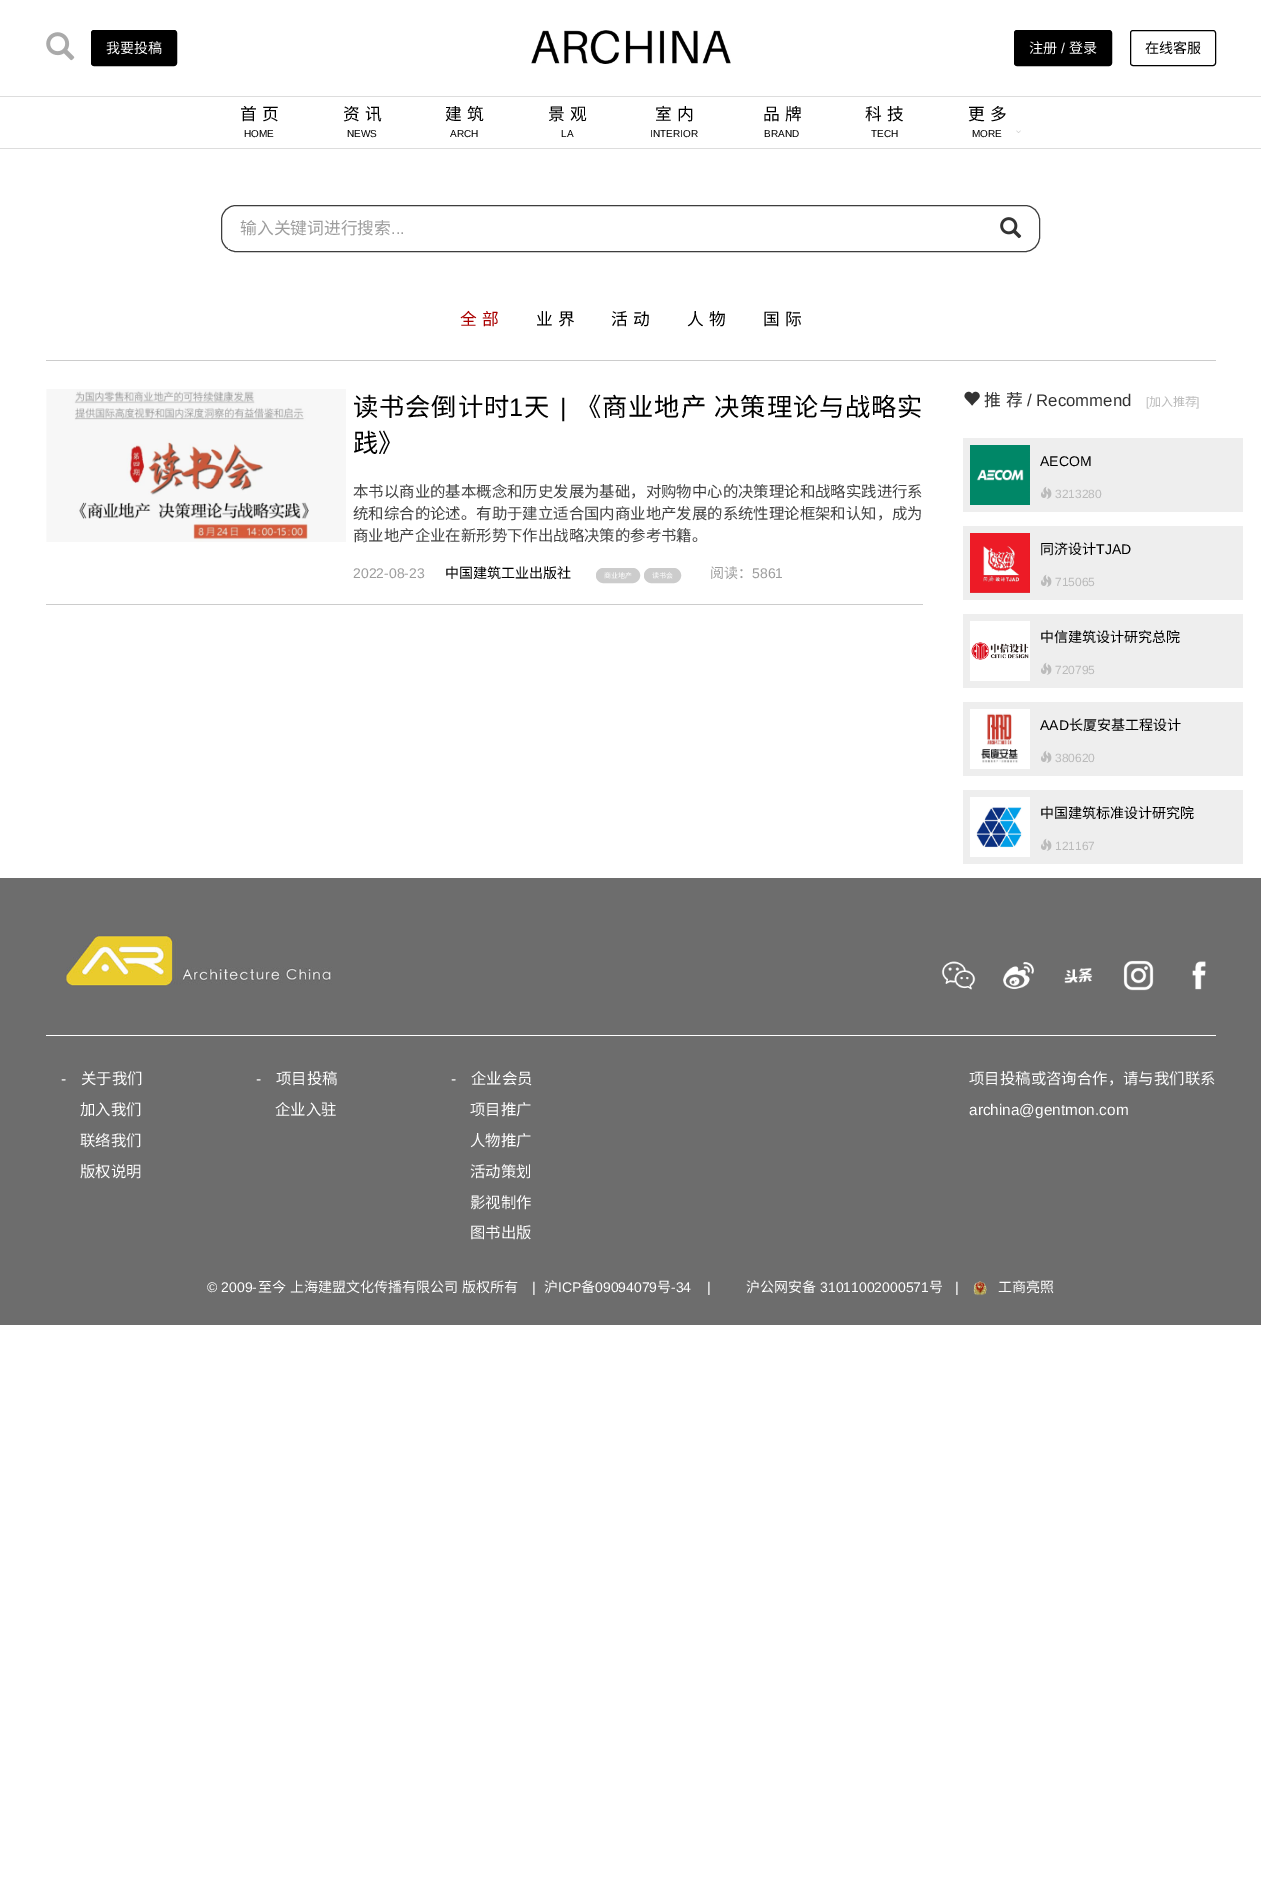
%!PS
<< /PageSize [1261 1880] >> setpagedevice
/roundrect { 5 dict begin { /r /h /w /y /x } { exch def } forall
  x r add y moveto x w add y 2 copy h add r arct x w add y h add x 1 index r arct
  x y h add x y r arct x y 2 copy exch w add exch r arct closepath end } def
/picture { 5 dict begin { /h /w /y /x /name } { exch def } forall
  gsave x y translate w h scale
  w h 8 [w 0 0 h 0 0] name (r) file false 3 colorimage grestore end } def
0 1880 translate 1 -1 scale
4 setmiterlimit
1 setgray
0 0 1261 1880 rectfill
(img1.rgb) 46 32 29 29 picture
0 setgray
91.5 30.5 85 35 2.5 roundrect gsave fill grestore
stroke
/NotoSansCJKSC-Regular [14 0 0 -14 0 0] selectfont
1 setgray
106 53 moveto (我要投稿) show
(img2.rgb) 531 30 200 34 picture
0 setgray
1014.5 30.5 97 35 2.5 roundrect gsave fill grestore
stroke
1 setgray
1029 53 moveto (注册) show
/LiberationSans-Regular [14 0 0 -14 0 0] selectfont
1061 53 moveto (/) show
/NotoSansCJKSC-Regular [14 0 0 -14 0 0] selectfont
1069 53 moveto (登录) show
0 setgray
1130.5 30.5 85 35 2.5 roundrect stroke
1145 53 moveto (在线客服) show
0.867 setgray
0 96 1261 1 rectfill
0 148 1261 1 rectfill
/NotoSansCJKSC-Regular [16.75 0 0 -16.75 0 0] selectfont
0 setgray
240 120 moveto 1 0 32 (首 页) widthshow
/LiberationSans-Regular [10 0 0 -10 0 0] selectfont
244 137 moveto (HOME) show
/NotoSansCJKSC-Regular [16.75 0 0 -16.75 0 0] selectfont
343 120 moveto 1 0 32 (资 讯) widthshow
/LiberationSans-Regular [10 0 0 -10 0 0] selectfont
347 137 moveto (NEWS) show
/NotoSansCJKSC-Regular [16.75 0 0 -16.75 0 0] selectfont
445 120 moveto 1 0 32 (建 筑) widthshow
/LiberationSans-Regular [10 0 0 -10 0 0] selectfont
450 137 moveto (ARCH) show
/NotoSansCJKSC-Regular [16.75 0 0 -16.75 0 0] selectfont
548 120 moveto 1 0 32 (景 观) widthshow
/LiberationSans-Regular [10 0 0 -10 0 0] selectfont
561 137 moveto (LA) show
/NotoSansCJKSC-Regular [16.75 0 0 -16.75 0 0] selectfont
655 120 moveto 1 0 32 (室 内) widthshow
/LiberationSans-Regular [10 0 0 -10 0 0] selectfont
650 137 moveto (INTERIOR) show
/NotoSansCJKSC-Regular [16.75 0 0 -16.75 0 0] selectfont
763 120 moveto 1 0 32 (品 牌) widthshow
/LiberationSans-Regular [10 0 0 -10 0 0] selectfont
764 137 moveto (BRAND) show
/NotoSansCJKSC-Regular [16.75 0 0 -16.75 0 0] selectfont
865 120 moveto 1 0 32 (科 技) widthshow
/LiberationSans-Regular [10 0 0 -10 0 0] selectfont
871 137 moveto (TECH) show
/NotoSansCJKSC-Regular [16.75 0 0 -16.75 0 0] selectfont
968 120 moveto 1 0 32 (更 多) widthshow
/LiberationSans-Regular [10 0 0 -10 0 0] selectfont
972 137 moveto (MORE) show
(img3.rgb) 1016 130 5 3 picture
0.243 setgray
221.5 205.5 818 46 14.5 roundrect stroke
1 setgray
228 248 1 1 rectfill
/NotoSansCJKSC-Regular [16.75 0 0 -16.75 0 0] selectfont
0.616 setgray
240 234 moveto (输入关键词进行搜索) show
/LiberationSans-Regular [16.75 0 0 -16.75 0 0] selectfont
391 234 moveto (...) show
(img4.rgb) 1000 217 22 22 picture
0.8 setgray
46 360 1170 1 rectfill
/NotoSansCJKSC-Regular [16.75 0 0 -16.75 0 0] selectfont
0.667 0 0 setrgbcolor
460 325 moveto 1 0 32 (全 部) widthshow
0 setgray
536 325 moveto 1 0 32 (业 界) widthshow
611 325 moveto 1 0 32 (活 动) widthshow
687 325 moveto 1 0 32 (人 物) widthshow
763 325 moveto 1 0 32 (国 际) widthshow
0.8 setgray
46 604 877 1 rectfill
(img5.rgb) 46 389 300 153 picture
/NotoSansCJKSC-Regular [25.25 0 0 -25.25 0 0] selectfont
0 setgray
353 416 moveto 0.9 0 (读书会倒计时) ashow
/LiberationSans-Regular [25.25 0 0 -25.25 0 0] selectfont
509 416 moveto 0.9 0 (1) ashow
/NotoSansCJKSC-Regular [25.25 0 0 -25.25 0 0] selectfont
524 416 moveto 0.9 0 (天) ashow
/LiberationSans-Regular [25.25 0 0 -25.25 0 0] selectfont
560 416 moveto 0.9 0 (|) ashow
/NotoSansCJKSC-Regular [25.25 0 0 -25.25 0 0] selectfont
576 416 moveto 1 0 32 0.9 0 (《商业地产 决策理论与战略实) awidthshow
353 452 moveto (践》) show
/NotoSansCJKSC-Regular [15.4 0 0 -15.4 0 0] selectfont
0.267 setgray
353 497 moveto (本书以商业的基本概念和历史发展为基础，对购物中心的决策理论和战略实践进行系) show
353 519 moveto (统和综合的论述。有助于建立适合国内商业地产发展的系统性理论框架和认知，成为) show
353 541 moveto (商业地产企业在新形势下作出战略决策的参考书籍。) show
/LiberationSans-Regular [14 0 0 -14 0 0] selectfont
0.616 setgray
353 578 moveto (2022-08-23) show
/NotoSansCJKSC-Regular [14 0 0 -14 0 0] selectfont
0 setgray
445 578 moveto (中国建筑工业出版社) show
0.8 setgray
596.5 568.5 43 14 7 roundrect gsave fill grestore
stroke
/NotoSansCJKSC-Regular [7 0 0 -7 0 0] selectfont
1 setgray
604 578 moveto (商业地产) show
0.8 setgray
644.5 568.5 36 14 7 roundrect gsave fill grestore
stroke
1 setgray
652 578 moveto (读书会) show
/NotoSansCJKSC-Regular [14 0 0 -14 0 0] selectfont
0.616 setgray
710 578 moveto (阅读：) show
/LiberationSans-Regular [14 0 0 -14 0 0] selectfont
752 578 moveto (5861) show
(img6.rgb) 964 391 16 15 picture
/NotoSansCJKSC-Regular [16.75 0 0 -16.75 0 0] selectfont
0.2 setgray
984 406 moveto (推) show
1006 406 moveto (荐) show
/LiberationSans-Regular [16.75 0 0 -16.75 0 0] selectfont
1027 406 moveto (/ Recommend) show
/LiberationSans-Regular [12 0 0 -12 0 0] selectfont
0.733 setgray
1146 406 moveto ([) show
/NotoSansCJKSC-Regular [12 0 0 -12 0 0] selectfont
1149 406 moveto (加入推荐) show
/LiberationSans-Regular [12 0 0 -12 0 0] selectfont
1196 406 moveto (]) show
0.933 setgray
963 438 280 74 rectfill
(img7.rgb) 970 445 60 60 picture
/LiberationSans-Regular [14 0 0 -14 0 0] selectfont
0 setgray
1040 466 moveto (AECOM) show
(img8.rgb) 1041 486 11 13 picture
/LiberationSans-Regular [12 0 0 -12 0 0] selectfont
0.733 setgray
1055 498 moveto (3213280) show
0.933 setgray
963 526 280 74 rectfill
(img9.rgb) 970 533 60 60 picture
/NotoSansCJKSC-Regular [14 0 0 -14 0 0] selectfont
0 setgray
1040 554 moveto (同济设计) show
/LiberationSans-Regular [14 0 0 -14 0 0] selectfont
1096 554 moveto (TJAD) show
(img8.rgb) 1041 574 11 13 picture
/LiberationSans-Regular [12 0 0 -12 0 0] selectfont
0.733 setgray
1055 586 moveto (715065) show
0.933 setgray
963 614 280 74 rectfill
(img10.rgb) 970 621 60 60 picture
/NotoSansCJKSC-Regular [14 0 0 -14 0 0] selectfont
0 setgray
1040 642 moveto (中信建筑设计研究总院) show
(img8.rgb) 1041 662 11 13 picture
/LiberationSans-Regular [12 0 0 -12 0 0] selectfont
0.733 setgray
1055 674 moveto (720795) show
0.933 setgray
963 702 280 74 rectfill
(img11.rgb) 970 709 60 60 picture
/LiberationSans-Regular [14 0 0 -14 0 0] selectfont
0 setgray
1040 730 moveto (AAD) show
/NotoSansCJKSC-Regular [14 0 0 -14 0 0] selectfont
1069 730 moveto (长厦安基工程设计) show
(img8.rgb) 1041 750 11 13 picture
/LiberationSans-Regular [12 0 0 -12 0 0] selectfont
0.733 setgray
1055 762 moveto (380620) show
0.933 setgray
963 790 280 74 rectfill
(img12.rgb) 970 797 60 60 picture
/NotoSansCJKSC-Regular [14 0 0 -14 0 0] selectfont
0 setgray
1040 818 moveto (中国建筑标准设计研究院) show
(img8.rgb) 1041 838 11 13 picture
/LiberationSans-Regular [12 0 0 -12 0 0] selectfont
0.733 setgray
1055 850 moveto (121167) show
0.427 setgray
0 878 1261 447 rectfill
1 setgray
46 1035 1170 1 rectfill
(img13.rgb) 65 934 267 53 picture
(img14.rgb) 941 961 35 29 picture
(img15.rgb) 1003 962 31 28 picture
(img16.rgb) 1064 968 29 16 picture
(img17.rgb) 1123 960 31 31 picture
(img18.rgb) 1192 961 14 29 picture
/LiberationSans-Regular [15.4 0 0 -15.4 0 0] selectfont
61 1084 moveto (-) show
/NotoSansCJKSC-Regular [15.4 0 0 -15.4 0 0] selectfont
81 1084 moveto (关于我们) show
80 1115 moveto (加入我们) show
80 1146 moveto (联络我们) show
80 1177 moveto (版权说明) show
/LiberationSans-Regular [15.4 0 0 -15.4 0 0] selectfont
256 1084 moveto (-) show
/NotoSansCJKSC-Regular [15.4 0 0 -15.4 0 0] selectfont
276 1084 moveto (项目投稿) show
275 1115 moveto (企业入驻) show
/LiberationSans-Regular [15.4 0 0 -15.4 0 0] selectfont
451 1084 moveto (-) show
/NotoSansCJKSC-Regular [15.4 0 0 -15.4 0 0] selectfont
471 1084 moveto (企业会员) show
470 1115 moveto (项目推广) show
470 1146 moveto (人物推广) show
470 1177 moveto (活动策划) show
470 1208 moveto (影视制作) show
470 1238 moveto (图书出版) show
969 1084 moveto (项目投稿或咨询合作，请与我们联系) show
/LiberationSans-Regular [15.4 0 0 -15.4 0 0] selectfont
969 1115 moveto (archina@gentmon.com) show
/LiberationSans-Regular [14 0 0 -14 0 0] selectfont
207 1292 moveto (© 2009-) show
/NotoSansCJKSC-Regular [14 0 0 -14 0 0] selectfont
258 1292 moveto (至今) show
290 1292 moveto 1 0 32 (上海建盟文化传播有限公司 版权所有) widthshow
/LiberationSans-Regular [14 0 0 -14 0 0] selectfont
532 1292 moveto (|) show
/NotoSansCJKSC-Regular [14 0 0 -14 0 0] selectfont
544 1292 moveto (沪) show
/LiberationSans-Regular [14 0 0 -14 0 0] selectfont
558 1292 moveto (ICP) show
/NotoSansCJKSC-Regular [14 0 0 -14 0 0] selectfont
581 1292 moveto (备) show
/LiberationSans-Regular [14 0 0 -14 0 0] selectfont
595 1292 moveto (09094079) show
/NotoSansCJKSC-Regular [14 0 0 -14 0 0] selectfont
657 1292 moveto (号) show
/LiberationSans-Regular [14 0 0 -14 0 0] selectfont
671 1292 moveto (-34) show
707 1292 moveto (|) show
/NotoSansCJKSC-Regular [14 0 0 -14 0 0] selectfont
746 1292 moveto (沪公网安备) show
/LiberationSans-Regular [14 0 0 -14 0 0] selectfont
820 1292 moveto (31011002000571) show
/NotoSansCJKSC-Regular [14 0 0 -14 0 0] selectfont
929 1292 moveto (号) show
/LiberationSans-Regular [14 0 0 -14 0 0] selectfont
955 1292 moveto (|) show
(img19.rgb) 973 1281 14 15 picture
/NotoSansCJKSC-Regular [14 0 0 -14 0 0] selectfont
998 1292 moveto (工商亮照) show
showpage
